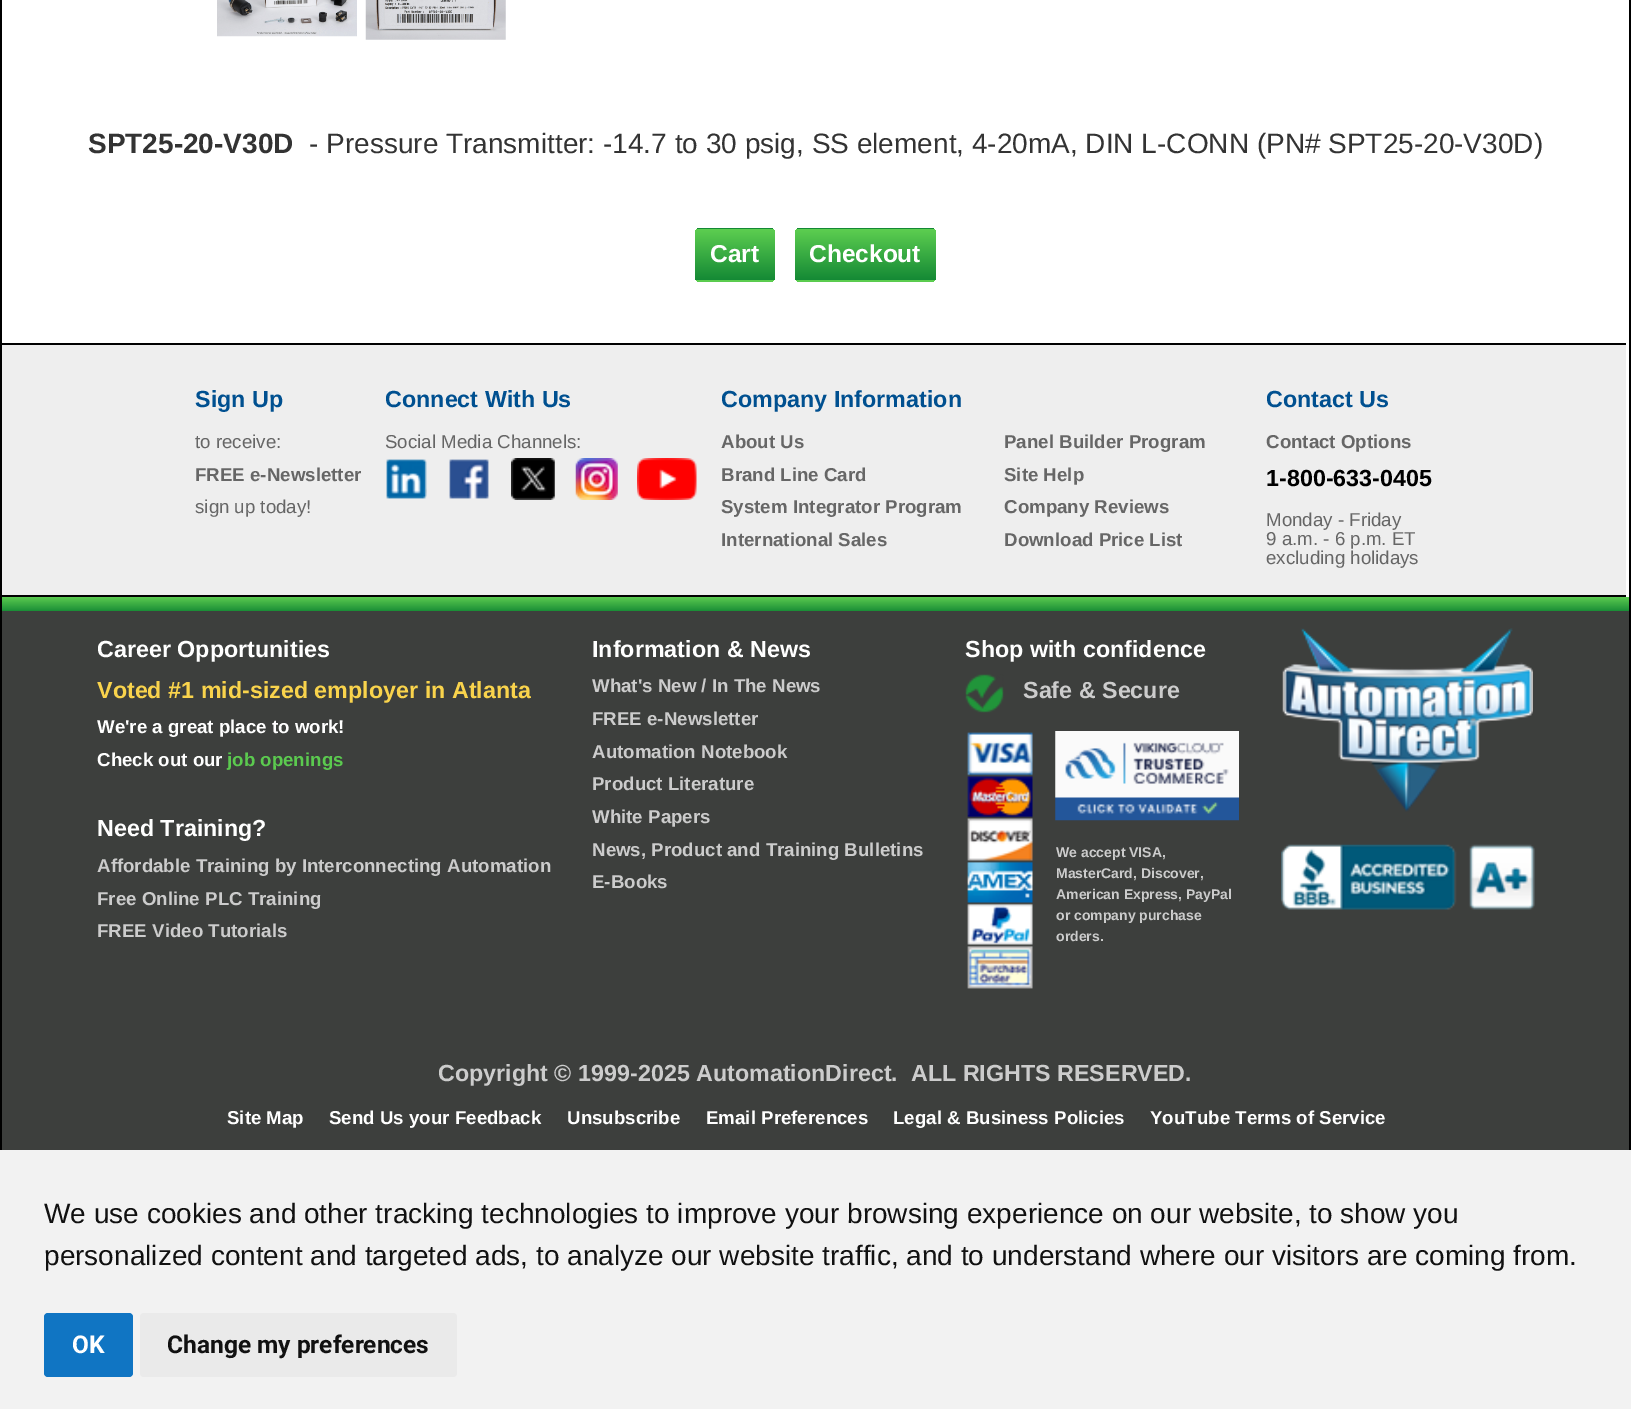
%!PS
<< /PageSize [1631 1409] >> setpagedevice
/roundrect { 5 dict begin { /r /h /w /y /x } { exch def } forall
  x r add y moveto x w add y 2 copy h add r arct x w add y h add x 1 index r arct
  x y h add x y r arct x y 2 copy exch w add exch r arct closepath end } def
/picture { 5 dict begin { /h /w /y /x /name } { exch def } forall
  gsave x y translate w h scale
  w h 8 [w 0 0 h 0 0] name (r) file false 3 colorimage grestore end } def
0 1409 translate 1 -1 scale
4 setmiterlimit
1 setgray
0 0 1631 1409 rectfill
0 setgray
1629 0 2 1150 rectfill
0 0 2 1150 rectfill
(img1.rgb) 217 0 140 37 picture
(img2.rgb) 365 0 141 40 picture
/LiberationSans-Bold [28 0 0 -28 0 0] selectfont
0.2 setgray
88 153 moveto (SPT25-20-V30D) show
/LiberationSans-Regular [28 0 0 -28 0 0] selectfont
309 153 moveto (- Pressure Transmitter: -14.7 to 30 psig, SS element, 4-20mA, DIN L-CONN \(PN# SPT25-20-V30D\)) show
gsave
695 228 80 54 5 roundrect clip newpath
gsave newpath 695 228 moveto 775 228 lineto 775 229 lineto 695 229 lineto closepath clip newpath
<< /ShadingType 2 /ColorSpace /DeviceRGB /Coords [735 179 735 229] /Extend [true true] /Function << /FunctionType 2 /Domain [0 1] /C0 [0.365 0.808 0.314] /C1 [0.078 0.537 0.208] /N 1 >> >> shfill grestore
gsave newpath 695 229 moveto 775 229 lineto 775 280 lineto 695 280 lineto closepath clip newpath
<< /ShadingType 2 /ColorSpace /DeviceRGB /Coords [735 229 735 280] /Extend [true true] /Function << /FunctionType 2 /Domain [0 1] /C0 [0.365 0.808 0.314] /C1 [0.078 0.537 0.208] /N 1 >> >> shfill grestore
gsave newpath 695 280 moveto 775 280 lineto 775 282 lineto 695 282 lineto closepath clip newpath
<< /ShadingType 2 /ColorSpace /DeviceRGB /Coords [735 280 735 331] /Extend [true true] /Function << /FunctionType 2 /Domain [0 1] /C0 [0.365 0.808 0.314] /C1 [0.078 0.537 0.208] /N 1 >> >> shfill grestore
grestore
/LiberationSans-Bold [24.5 0 0 -24.5 0 0] selectfont
1 setgray
710 262 moveto (Cart) show
gsave
795 228 141 54 5 roundrect clip newpath
gsave newpath 795 228 moveto 936 228 lineto 936 229 lineto 795 229 lineto closepath clip newpath
<< /ShadingType 2 /ColorSpace /DeviceRGB /Coords [865 179 865 229] /Extend [true true] /Function << /FunctionType 2 /Domain [0 1] /C0 [0.365 0.808 0.314] /C1 [0.078 0.537 0.208] /N 1 >> >> shfill grestore
gsave newpath 795 229 moveto 936 229 lineto 936 280 lineto 795 280 lineto closepath clip newpath
<< /ShadingType 2 /ColorSpace /DeviceRGB /Coords [865 229 865 280] /Extend [true true] /Function << /FunctionType 2 /Domain [0 1] /C0 [0.365 0.808 0.314] /C1 [0.078 0.537 0.208] /N 1 >> >> shfill grestore
gsave newpath 795 280 moveto 936 280 lineto 936 282 lineto 795 282 lineto closepath clip newpath
<< /ShadingType 2 /ColorSpace /DeviceRGB /Coords [865 280 865 331] /Extend [true true] /Function << /FunctionType 2 /Domain [0 1] /C0 [0.365 0.808 0.314] /C1 [0.078 0.537 0.208] /N 1 >> >> shfill grestore
grestore
809 262 moveto (Checkout) show
0.933 setgray
2 345 1624 250 rectfill
0 setgray
2 343 1624 2 rectfill
2 595 1624 2 rectfill
/LiberationSans-Bold [23.3 0 0 -23.3 0 0] selectfont
0 0.314 0.565 setrgbcolor
195 407 moveto (Sign Up) show
/LiberationSans-Regular [18.7 0 0 -18.7 0 0] selectfont
0.4 setgray
195 448 moveto (to receive:) show
/LiberationSans-Bold [18.7 0 0 -18.7 0 0] selectfont
195 481 moveto (FREE e-Newsletter) show
/LiberationSans-Regular [18.7 0 0 -18.7 0 0] selectfont
195 513 moveto (sign up today!) show
/LiberationSans-Bold [23.3 0 0 -23.3 0 0] selectfont
0 0.314 0.565 setrgbcolor
385 407 moveto (Connect With Us) show
/LiberationSans-Regular [18.7 0 0 -18.7 0 0] selectfont
0.4 setgray
385 448 moveto (Social Media Channels:) show
(img3.rgb) 386 459 41 40 picture
(img4.rgb) 449 459 40 40 picture
(img5.rgb) 511 458 44 42 picture
(img6.rgb) 575 458 43 42 picture
(img7.rgb) 637 458 60 42 picture
/LiberationSans-Bold [23.3 0 0 -23.3 0 0] selectfont
0 0.314 0.565 setrgbcolor
721 407 moveto (Company Information) show
/LiberationSans-Bold [18.7 0 0 -18.7 0 0] selectfont
0.4 setgray
721 448 moveto (About Us) show
721 481 moveto (Brand Line Card) show
721 513 moveto (System Integrator Program) show
721 546 moveto (International Sales) show
1004 448 moveto (Panel Builder Program) show
1004 481 moveto (Site Help) show
1004 513 moveto (Company Reviews) show
1004 546 moveto (Download Price List) show
/LiberationSans-Bold [23.3 0 0 -23.3 0 0] selectfont
0 0.314 0.565 setrgbcolor
1266 407 moveto (Contact Us) show
/LiberationSans-Bold [18.7 0 0 -18.7 0 0] selectfont
0.4 setgray
1266 448 moveto (Contact Options) show
/LiberationSans-Bold [23.3 0 0 -23.3 0 0] selectfont
0 setgray
1266 486 moveto (1-800-633-0405) show
/LiberationSans-Regular [18.7 0 0 -18.7 0 0] selectfont
0.4 setgray
1266 526 moveto (Monday - Friday) show
1266 545 moveto (9 a.m. - 6 p.m. ET) show
1266 564 moveto (excluding holidays) show
gsave newpath 2 597 moveto 1629 597 lineto 1629 611 lineto 2 611 lineto closepath clip newpath
<< /ShadingType 2 /ColorSpace /DeviceRGB /Coords [816 597 816 611] /Extend [true true] /Function << /FunctionType 2 /Domain [0 1] /C0 [0.357 0.792 0.31] /C1 [0.106 0.561 0.216] /N 1 >> >> shfill grestore
0.239 0.247 0.239 setrgbcolor
2 611 1627 539 rectfill
/LiberationSans-Bold [23.3 0 0 -23.3 0 0] selectfont
1 setgray
97 657 moveto (Career Opportunities) show
0.976 0.827 0.298 setrgbcolor
97 698 moveto (Voted #1 mid-sized employer in Atlanta) show
/LiberationSans-Bold [18.7 0 0 -18.7 0 0] selectfont
1 setgray
97 733 moveto (We're a great place to work!) show
97 766 moveto (Check out our) show
0.357 0.792 0.31 setrgbcolor
227 766 moveto (job openings) show
/LiberationSans-Bold [23.3 0 0 -23.3 0 0] selectfont
1 setgray
97 836 moveto (Need Training?) show
/LiberationSans-Bold [18.7 0 0 -18.7 0 0] selectfont
0.8 setgray
97 872 moveto (Affordable Training by Interconnecting Automation) show
97 905 moveto (Free Online PLC Training) show
97 937 moveto (FREE Video Tutorials) show
/LiberationSans-Bold [23.3 0 0 -23.3 0 0] selectfont
1 setgray
592 657 moveto (Information & News) show
/LiberationSans-Bold [18.7 0 0 -18.7 0 0] selectfont
0.8 setgray
592 692 moveto (What's New / In The News) show
592 725 moveto (FREE e-Newsletter) show
592 758 moveto (Automation Notebook) show
592 790 moveto (Product Literature) show
592 823 moveto (White Papers) show
592 856 moveto (News, Product and Training Bulletins) show
592 888 moveto (E-Books) show
/LiberationSans-Bold [23.3 0 0 -23.3 0 0] selectfont
1 setgray
965 657 moveto (Shop with confidence) show
(img8.rgb) 965 674 39 39 picture
0.8 setgray
1023 698 moveto (Safe & Secure) show
(img9.rgb) 967 732 66 257 picture
(img10.rgb) 1055 731 184 90 picture
/LiberationSans-Bold [14 0 0 -14 0 0] selectfont
1056 857 moveto (We accept VISA,) show
1056 878 moveto (MasterCard, Discover,) show
1056 899 moveto (American Express, PayPal) show
1056 920 moveto (or company purchase) show
1056 941 moveto (orders.) show
(img11.rgb) 1282 628 251 184 picture
(img12.rgb) 1281 844 254 66 picture
/LiberationSans-Bold [23.3 0 0 -23.3 0 0] selectfont
438 1081 moveto (Copyright © 1999-2025 AutomationDirect.  ALL RIGHTS RESERVED.) show
/LiberationSans-Bold [18.7 0 0 -18.7 0 0] selectfont
1 setgray
227 1124 moveto (Site Map) show
329 1124 moveto (Send Us your Feedback) show
567 1124 moveto (Unsubscribe) show
706 1124 moveto (Email Preferences) show
893 1124 moveto (Legal & Business Policies) show
1150 1124 moveto (YouTube Terms of Service) show
0.949 setgray
0 1150 1631 259 rectfill
/LiberationSans-Regular [28 0 0 -28 0 0] selectfont
0.067 setgray
44 1223 moveto (We use cookies and other tracking technologies to improve your browsing experience on our website, to show you) show
44 1265 moveto (personalized content and targeted ads, to analyze our website traffic, and to understand where our visitors are coming from.) show
0.063 0.459 0.765 setrgbcolor
44 1313 89 64 4 roundrect fill
/Roboto-Bold [24.5 0 0 -24.5 0 0] selectfont
1 setgray
72 1353 moveto (OK) show
0.918 setgray
140 1313 317 64 4 roundrect fill
0.067 setgray
167 1353 moveto (Change my preferences) show
showpage
